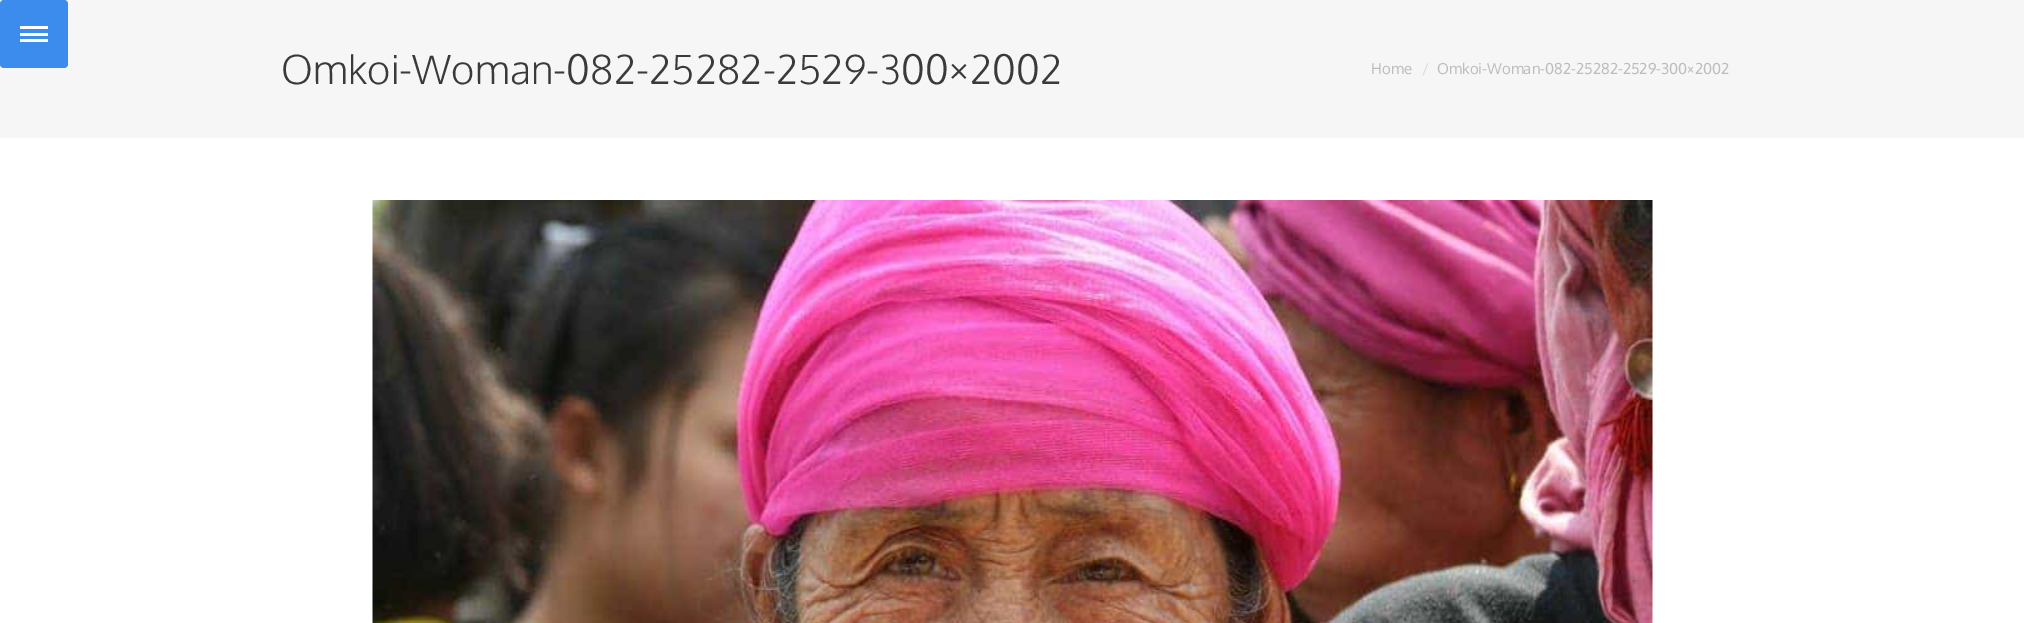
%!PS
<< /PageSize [2024 623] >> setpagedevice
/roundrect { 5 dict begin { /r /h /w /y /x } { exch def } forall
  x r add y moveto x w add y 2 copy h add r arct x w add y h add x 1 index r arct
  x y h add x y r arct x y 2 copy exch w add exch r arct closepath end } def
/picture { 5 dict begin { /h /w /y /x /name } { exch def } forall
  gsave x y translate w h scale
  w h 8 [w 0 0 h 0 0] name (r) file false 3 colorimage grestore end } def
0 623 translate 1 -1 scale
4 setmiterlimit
1 setgray
0 0 2024 623 rectfill
0.965 setgray
0 0 2024 138 rectfill
0.231 0.549 0.929 setrgbcolor
0 0 68 68 4 roundrect fill
1 setgray
20 26 28 3 rectfill
20 33 28 3 rectfill
20 39 28 3 rectfill
/Oxygen-Light [40 0 0 -40 0 0] selectfont
0.227 setgray
281 84 moveto (Omkoi-Woman-082-25282-2529-300×2002) show
/Oxygen-Regular [15 0 0 -15 0 0] selectfont
0.737 setgray
1371 74 moveto (Home) show
0.851 setgray
1422 74 moveto (/) show
0.737 setgray
1437 74 moveto (Omkoi-Woman-082-25282-2529-300×2002) show
(img1.rgb) 372 200 1281 423 picture
showpage
